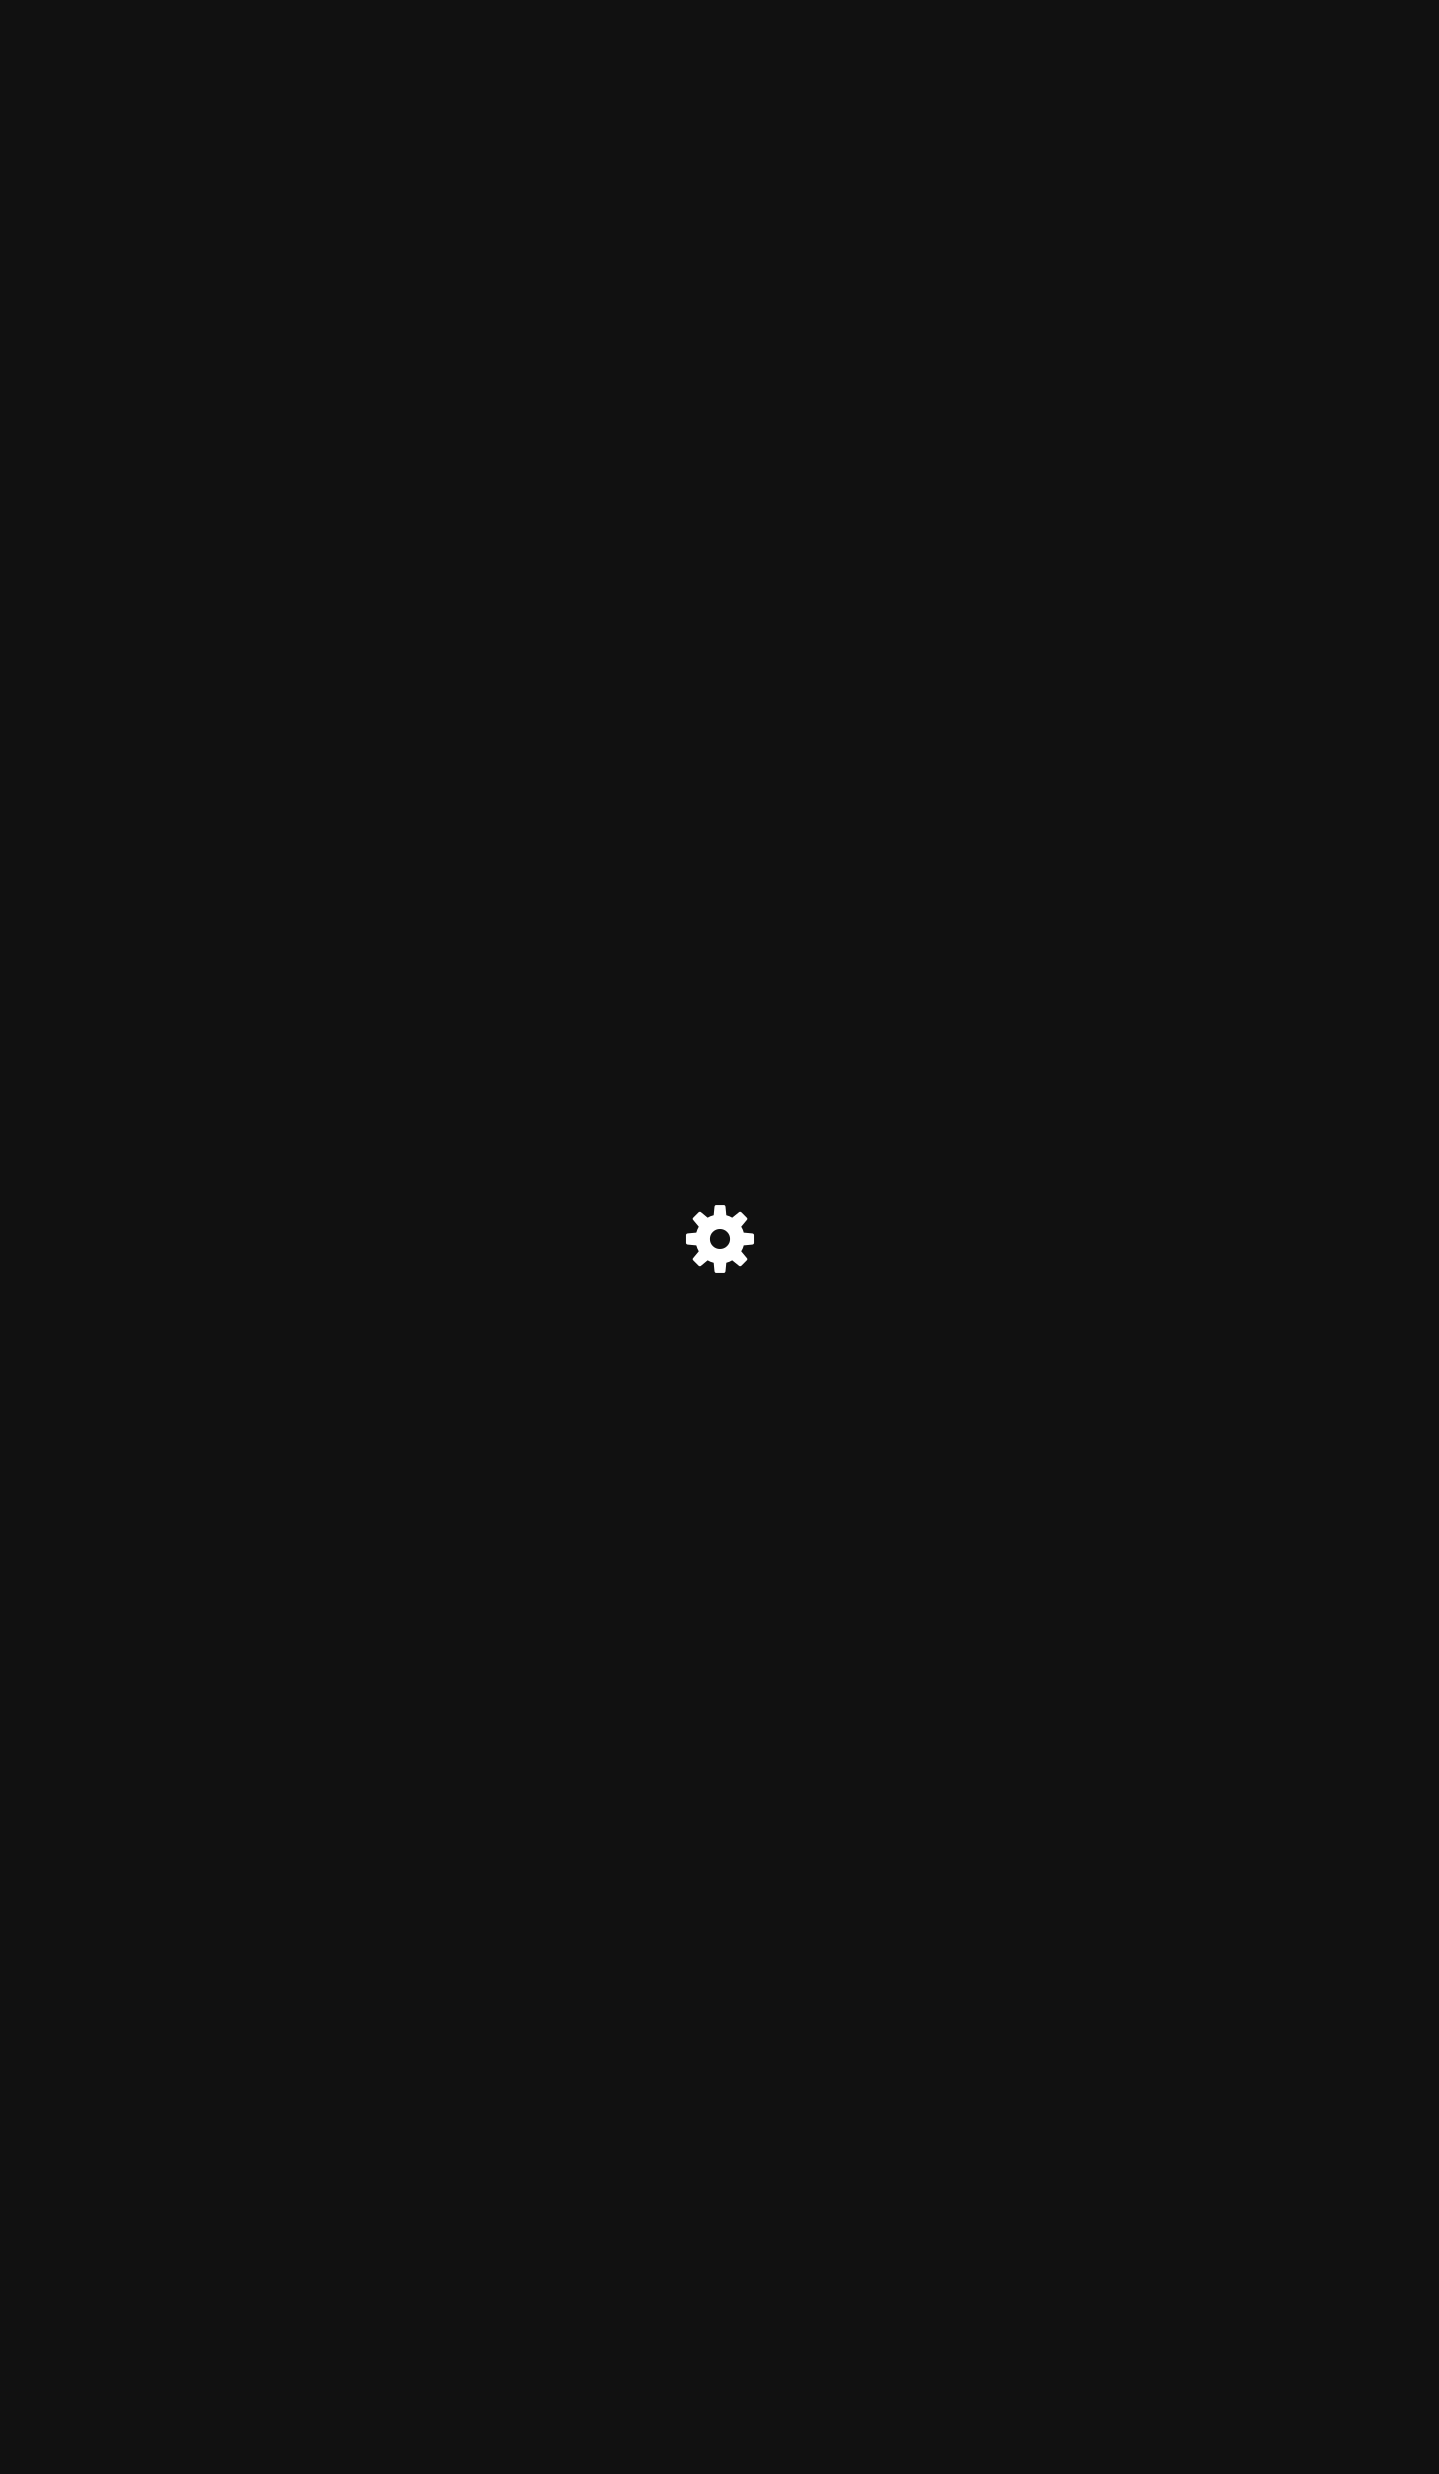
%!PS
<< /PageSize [1439 2474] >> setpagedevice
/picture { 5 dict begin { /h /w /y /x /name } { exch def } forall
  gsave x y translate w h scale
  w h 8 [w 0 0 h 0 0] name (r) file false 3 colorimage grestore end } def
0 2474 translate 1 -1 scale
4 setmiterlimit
0.067 setgray
0 0 1439 2474 rectfill
(img1.rgb) 685 1205 70 68 picture
showpage
